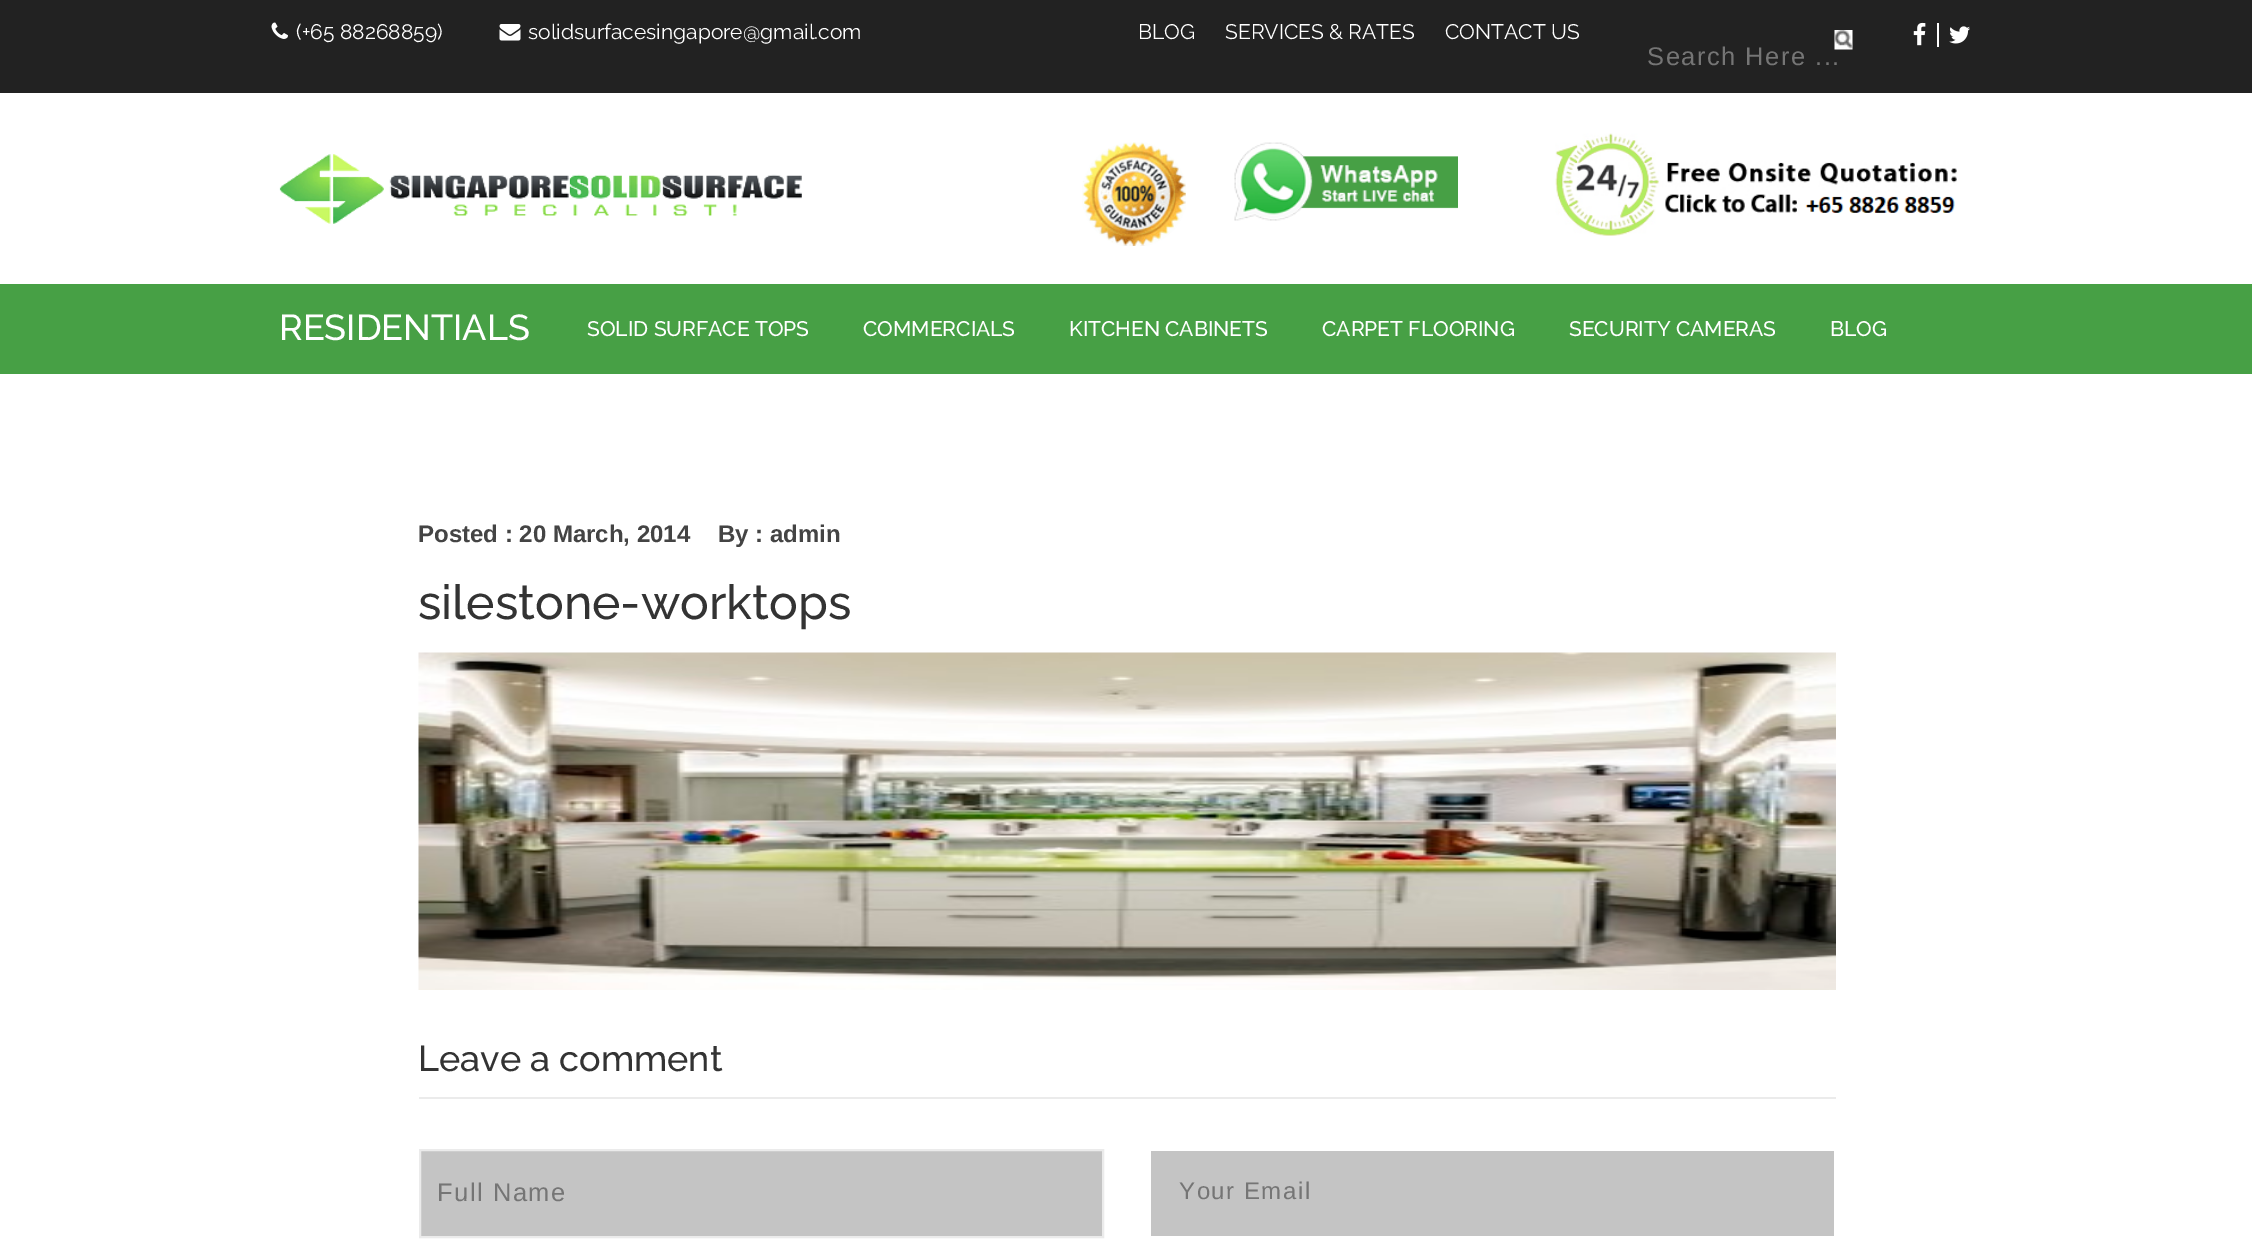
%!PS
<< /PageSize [2252 1258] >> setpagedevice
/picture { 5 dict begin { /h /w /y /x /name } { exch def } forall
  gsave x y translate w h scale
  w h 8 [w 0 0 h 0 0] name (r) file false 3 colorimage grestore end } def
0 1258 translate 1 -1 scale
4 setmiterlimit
1 setgray
0 0 2252 1258 rectfill
0.133 setgray
0 0 2252 93 rectfill
(img1.rgb) 271 22 17 17 picture
/Raleway-Regular [21 0 0 -21 0 0] selectfont
1 setgray
296 39 moveto (\(+65 88268859\)) show
(img2.rgb) 499 24 22 17 picture
528 39 moveto (solidsurfacesingapore@gmail.com) show
1138 39 moveto (BLOG) show
1225 39 moveto (SERVICES & RATES) show
1445 39 moveto (CONTACT US) show
1937 23 2 24 rectfill
(img3.rgb) 1913 22 13 24 picture
(img4.rgb) 1949 26 21 18 picture
/LiberationSans-Regular [25.5 0 0 -25.5 0 0] selectfont
0.459 setgray
1647 65 moveto 1.5 0 (Search Here ...) ashow
(img5.rgb) 1834 30 19 20 picture
(img6.rgb) 279 154 523 70 picture
(img7.rgb) 1082 142 104 104 picture
(img8.rgb) 1234 142 224 79 picture
(img9.rgb) 1555 133 402 103 picture
0.278 0.627 0.271 setrgbcolor
0 284 2252 90 rectfill
/Raleway-Medium [36 0 0 -36 0 0] selectfont
1 setgray
279 340 moveto (RESIDENTIALS) show
/Raleway-Medium [21 0 0 -21 0 0] selectfont
587 336 moveto (SOLID SURFACE TOPS) show
863 336 moveto (COMMERCIALS) show
1069 336 moveto (KITCHEN CABINETS) show
1322 336 moveto (CARPET FLOORING) show
1569 336 moveto (SECURITY CAMERAS) show
1830 336 moveto (BLOG) show
/LiberationSans-Bold [24 0 0 -24 0 0] selectfont
0.267 setgray
418 542 moveto (Posted : 20 March, 2014) show
718 542 moveto (By : admin) show
/Raleway-Medium [48 0 0 -48 0 0] selectfont
0.2 setgray
418 619 moveto (silestone-worktops) show
(img10.rgb) 418 652 1418 338 picture
/Raleway-Medium [36 0 0 -36 0 0] selectfont
418 1071 moveto (Leave a comment) show
0.922 setgray
419 1097 1417 2 rectfill
0.769 setgray
newpath 420 1150 moveto 1103 1150 lineto 1103 1237 lineto 420 1237 lineto closepath gsave fill grestore
0.922 setgray
2 setlinewidth
stroke
/LiberationSans-Regular [25.5 0 0 -25.5 0 0] selectfont
0.459 setgray
437 1201 moveto 1.5 0 (Full Name) ashow
0.769 setgray
1151 1151 683 85 rectfill
/LiberationSans-Regular [24 0 0 -24 0 0] selectfont
0.459 setgray
1179 1199 moveto 1.5 0 (Your Email) ashow
showpage
